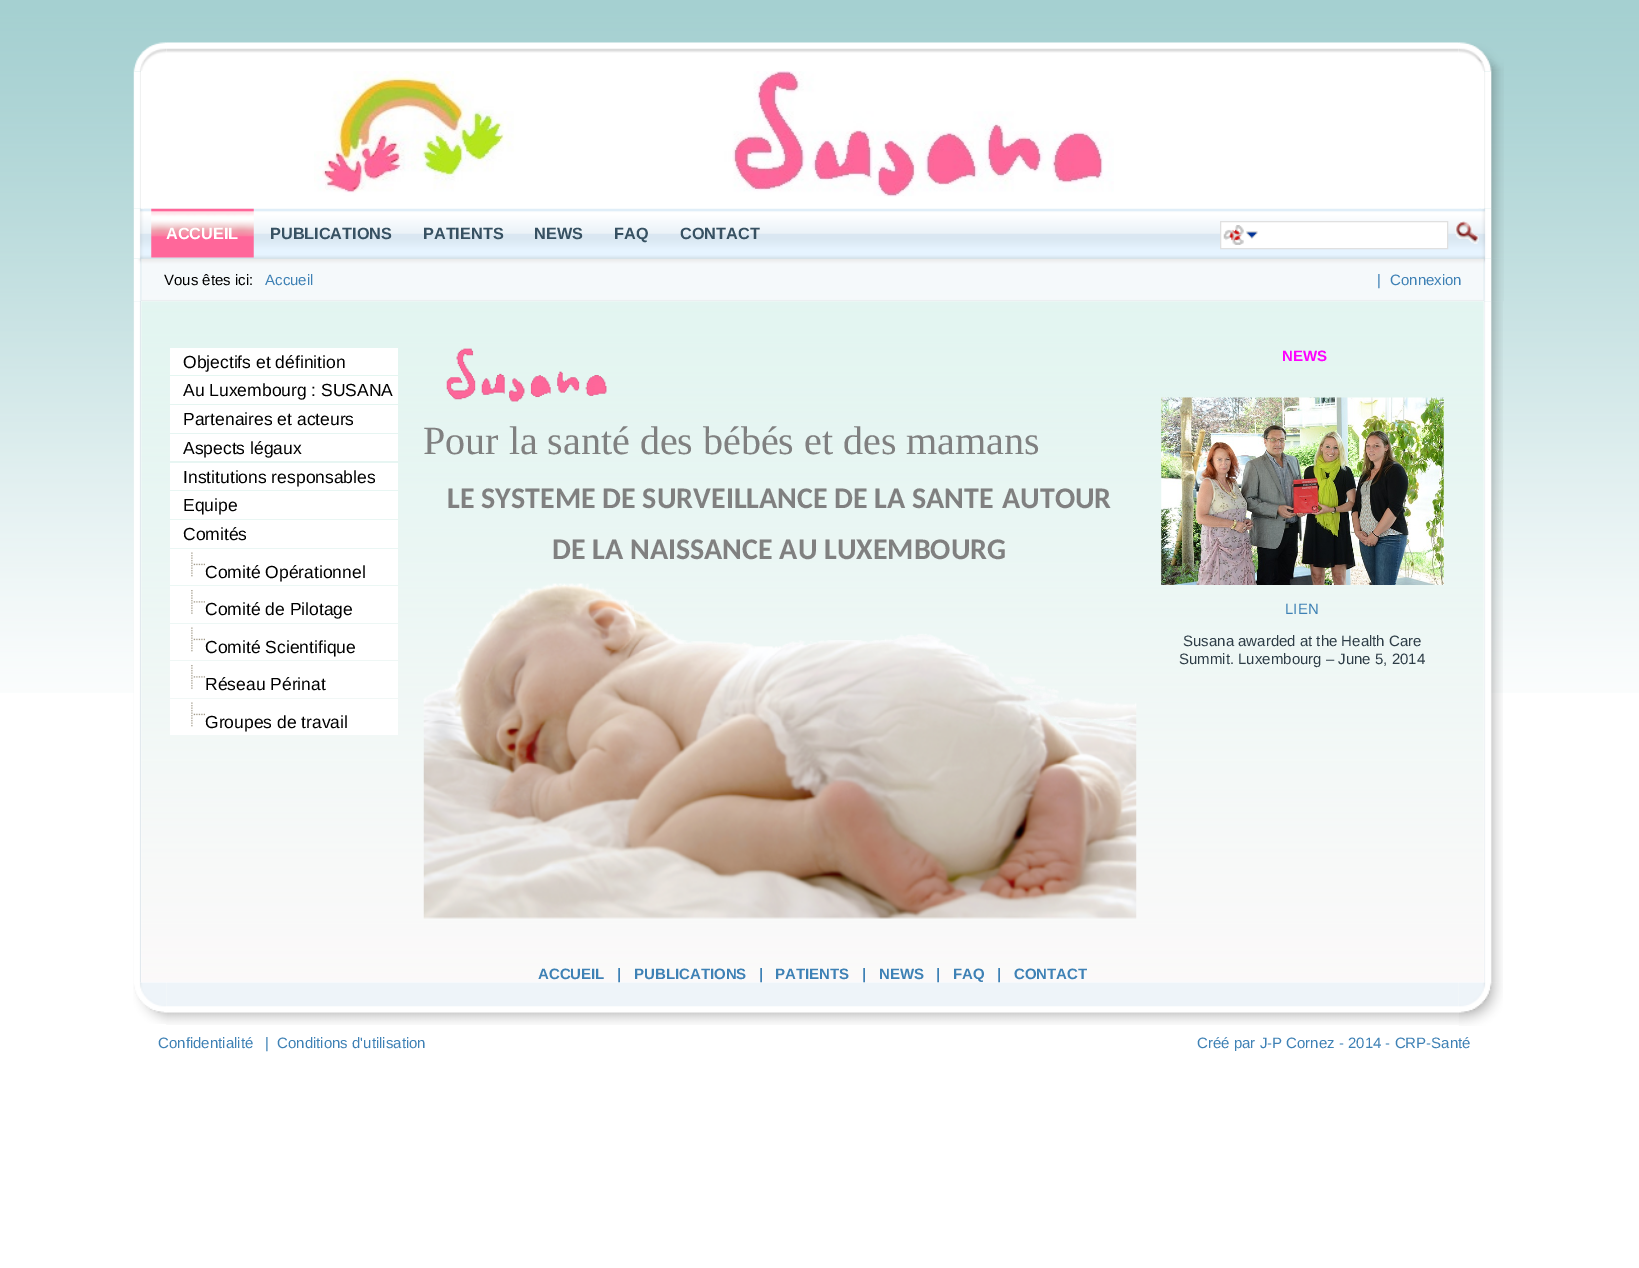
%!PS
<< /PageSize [1639 1268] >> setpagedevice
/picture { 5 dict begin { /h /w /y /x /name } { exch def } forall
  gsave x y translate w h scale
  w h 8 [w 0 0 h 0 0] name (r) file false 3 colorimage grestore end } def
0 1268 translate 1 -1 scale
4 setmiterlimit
1 setgray
0 0 1639 1268 rectfill
(img1.rgb) 0 0 1639 693 picture
(img2.rgb) 133 42 34 30 picture
(img3.rgb) 1458 42 46 30 picture
166 43 1293 28 rectfill
(img4.rgb) 166 42 1293 11 picture
(img5.rgb) 133 71 8 138 picture
(img6.rgb) 1484 71 20 138 picture
141 71 1343 138 rectfill
(img7.rgb) 314 71 800 126 picture
(img8.rgb) 133 208 19 51 picture
(img9.rgb) 1478 208 26 51 picture
(img10.rgb) 144 208 1337 51 picture
(img11.rgb) 151 208 103 50 picture
/LiberationSans-Bold [16.25 0 0 -16.25 0 0] selectfont
166 239 moveto (ACCUEIL) show
0.216 0.318 0.384 setrgbcolor
270 239 moveto (PUBLICATIONS) show
423 239 moveto (PATIENTS) show
534 239 moveto (NEWS) show
614 239 moveto (FAQ) show
680 239 moveto (CONTACT) show
1 setgray
newpath 1220.5 221.5 moveto 1447.5 221.5 lineto 1447.5 248.5 lineto 1220.5 248.5 lineto closepath gsave fill grestore
0.878 setgray
stroke
(img12.rgb) 1223 225 21 20 picture
(img13.rgb) 1246 231 12 8 picture
(img14.rgb) 1455 221 24 23 picture
(img15.rgb) 133 259 9 43 picture
(img16.rgb) 1483 258 21 44 picture
(img17.rgb) 141 258 1343 43 picture
/LiberationSans-Regular [15 0 0 -15 0 0] selectfont
0 setgray
164 285 moveto (Vous êtes ici:) show
0.243 0.506 0.71 setrgbcolor
265 285 moveto (Accueil) show
1377 285 moveto (|) show
1390 285 moveto (Connexion) show
(img18.rgb) 133 301 8 682 picture
(img19.rgb) 1484 301 19 682 picture
1 setgray
141 301 1343 392 rectfill
(img20.rgb) 141 301 1343 681 picture
170 348 228 27 rectfill
/LiberationSans-Regular [17.5 0 0 -17.5 0 0] selectfont
0 setgray
183 368 moveto (Objectifs et définition) show
1 setgray
170 376 228 28 rectfill
0 setgray
183 396 moveto (Au Luxembourg : SUSANA) show
1 setgray
170 405 228 28 rectfill
0 setgray
183 425 moveto (Partenaires et acteurs) show
1 setgray
170 434 228 27 rectfill
0 setgray
183 454 moveto (Aspects légaux) show
1 setgray
170 463 228 27 rectfill
0 setgray
183 483 moveto (Institutions responsables) show
1 setgray
170 491 228 28 rectfill
0 setgray
183 511 moveto (Equipe) show
1 setgray
170 520 228 28 rectfill
0 setgray
183 540 moveto (Comités) show
1 setgray
170 549 228 36 rectfill
(img21.rgb) 191 552 14 25 picture
0 setgray
205 578 moveto (Comité Opérationnel) show
1 setgray
170 586 228 37 rectfill
(img22.rgb) 191 590 14 24 picture
0 setgray
205 615 moveto (Comité de Pilotage) show
1 setgray
170 624 228 36 rectfill
(img21.rgb) 191 627 14 25 picture
0 setgray
205 653 moveto (Comité Scientifique) show
1 setgray
170 661 228 37 rectfill
(img22.rgb) 191 665 14 24 picture
0 setgray
205 690 moveto (Réseau Périnat) show
1 setgray
170 699 228 36 rectfill
(img21.rgb) 191 702 14 25 picture
0 setgray
205 728 moveto (Groupes de travail) show
(img23.rgb) 446 348 161 54 picture
/LiberationSerif-Regular [40 0 0 -40 0 0] selectfont
0.502 setgray
423 454 moveto (Pour la santé des bébés et des mamans) show
/Carlito-Bold [30 0 0 -30 0 0] selectfont
447 508 moveto (LE SYSTEME DE SURVEILLANCE DE LA SANTE) show
1002 508 moveto (AUTOUR) show
552 559 moveto (DE LA NAISSANCE AU LUXEMBOURG) show
(img24.rgb) 423 583 714 336 picture
/LiberationSans-Bold [15 0 0 -15 0 0] selectfont
1 0 1 setrgbcolor
1282 361 moveto (NEWS) show
(img25.rgb) 1161 397 283 188 picture
/LiberationSans-Regular [15 0 0 -15 0 0] selectfont
0.243 0.506 0.71 setrgbcolor
1285 614 moveto (LIEN) show
0.18 0.239 0.278 setrgbcolor
1183 646 moveto (Susana awarded at the Health Care) show
1179 664 moveto (Summit. Luxembourg – June 5, 2014) show
/LiberationSans-Bold [15 0 0 -15 0 0] selectfont
0.243 0.506 0.71 setrgbcolor
538 979 moveto (ACCUEIL) show
(img26.rgb) 133 982 34 42 picture
(img27.rgb) 1458 982 45 44 picture
(img28.rgb) 166 982 1293 43 picture
617 979 moveto (|) show
634 979 moveto (PUBLICATIONS) show
759 979 moveto (|) show
775 979 moveto (PATIENTS) show
862 979 moveto (|) show
879 979 moveto (NEWS) show
936 979 moveto (|) show
953 979 moveto (FAQ) show
997 979 moveto (|) show
1014 979 moveto (CONTACT) show
/LiberationSans-Regular [15 0 0 -15 0 0] selectfont
158 1048 moveto (Confidentialité) show
265 1048 moveto (|) show
277 1048 moveto (Conditions d'utilisation) show
1197 1048 moveto (Créé par J-P Cornez - 2014 - CRP-Santé) show
showpage
